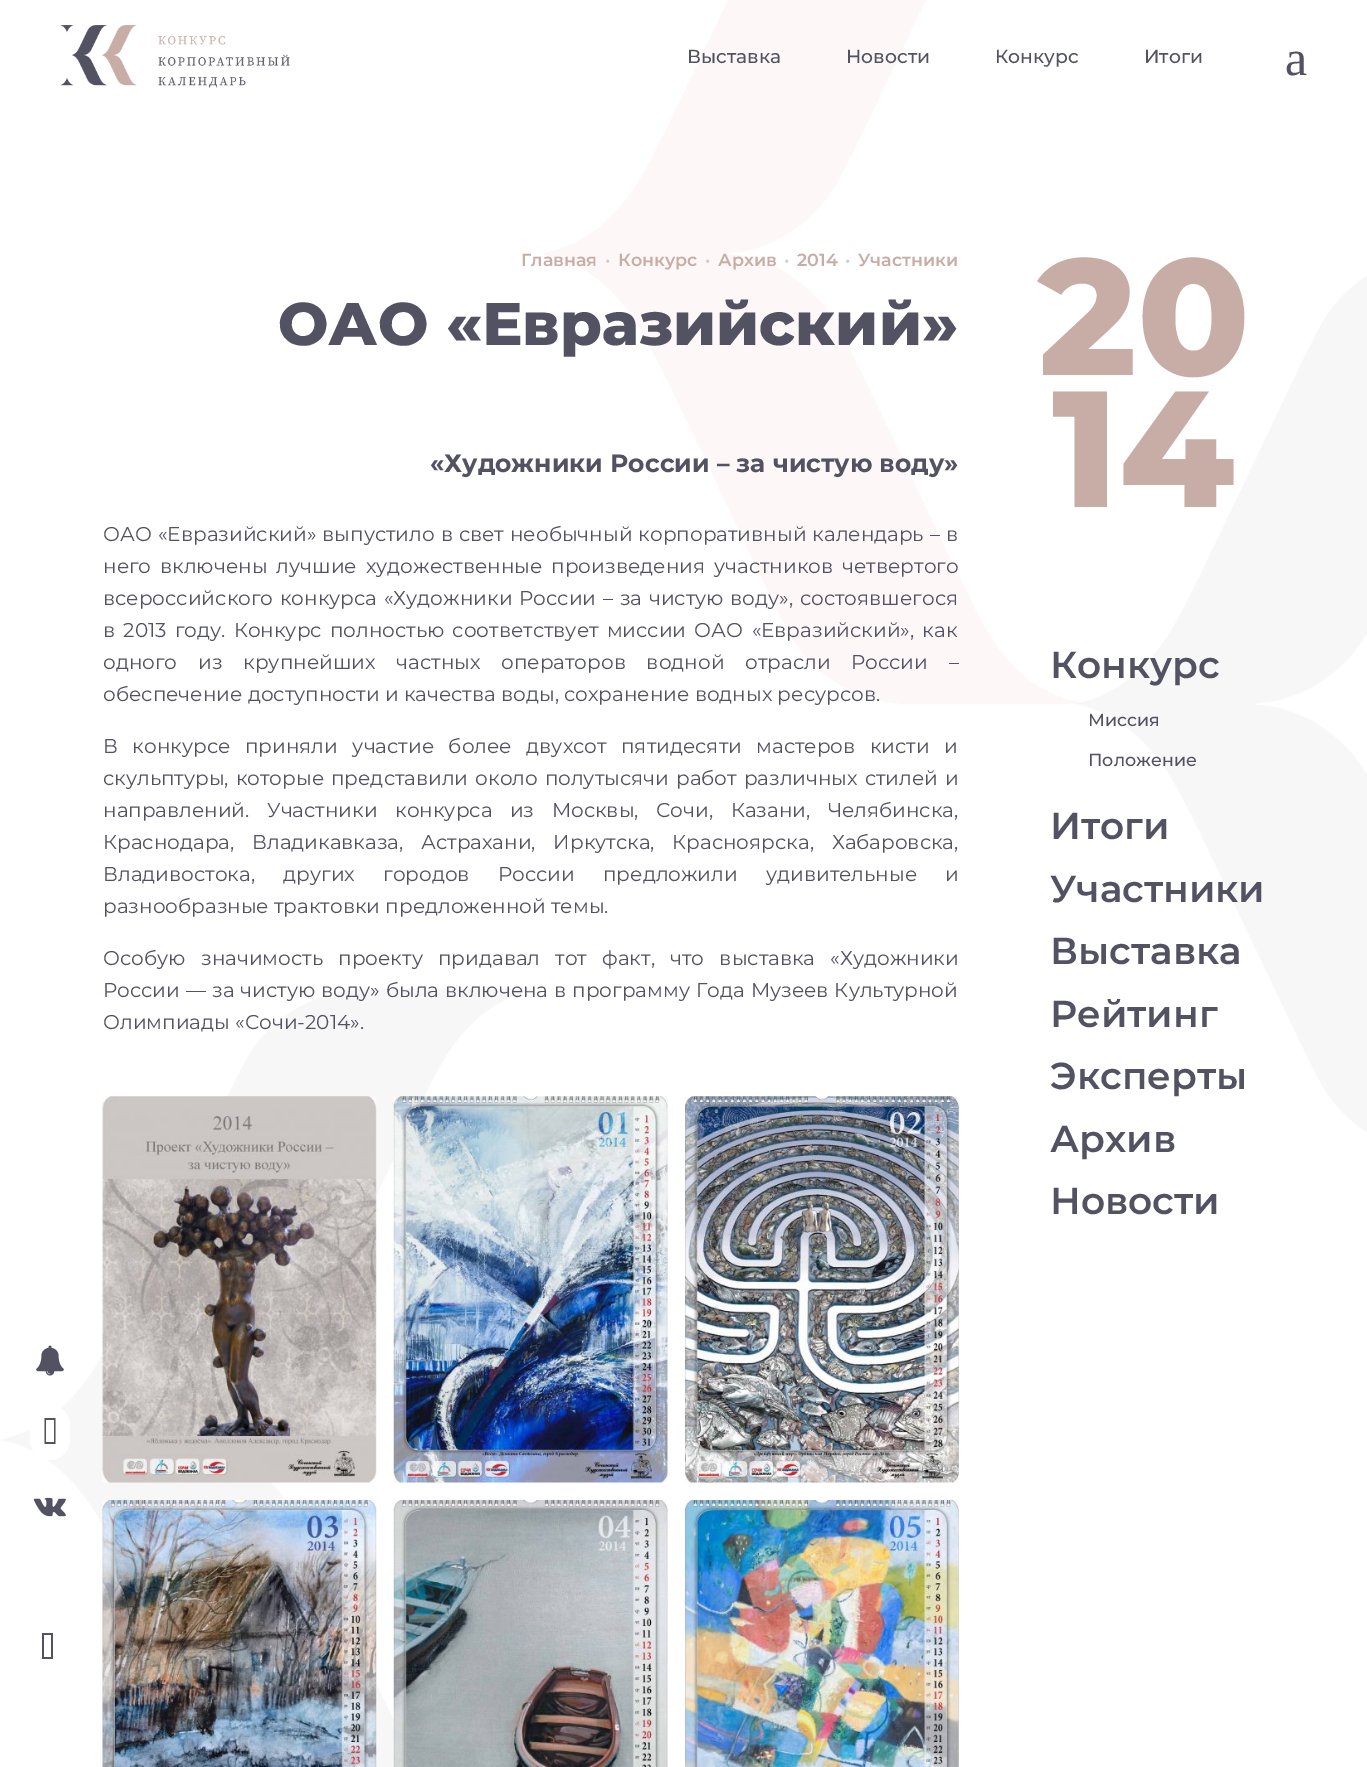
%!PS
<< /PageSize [1367 1767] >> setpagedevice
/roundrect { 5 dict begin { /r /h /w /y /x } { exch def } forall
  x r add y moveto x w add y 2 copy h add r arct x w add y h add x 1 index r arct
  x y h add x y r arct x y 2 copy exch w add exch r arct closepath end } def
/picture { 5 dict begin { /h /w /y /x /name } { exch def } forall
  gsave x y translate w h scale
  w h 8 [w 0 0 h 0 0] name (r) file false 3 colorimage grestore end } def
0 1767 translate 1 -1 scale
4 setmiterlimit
1 setgray
0 0 1367 1767 rectfill
(img2.rgb) 1 0 1366 1767 picture
(img1.rgb) 60 25 230 63 picture
/Montserrat-Medium [18.75 0 0 -18.75 0 0] selectfont
0.322 0.322 0.388 setrgbcolor
687 63 moveto (Выставка) show
846 63 moveto (Новости) show
995 63 moveto (Конкурс) show
1144 63 moveto (Итоги) show
/LiberationSerif-Regular [50 0 0 -50 0 0] selectfont
1285 75 moveto (a) show
/Montserrat-SemiBold [17.5 0 0 -17.5 0 0] selectfont
0.784 0.675 0.651 setrgbcolor
521 266 moveto (Главная) show
/Montserrat-Medium [17.5 0 0 -17.5 0 0] selectfont
0.816 0.788 0.812 setrgbcolor
605 266 moveto (•) show
/Montserrat-SemiBold [17.5 0 0 -17.5 0 0] selectfont
0.784 0.675 0.651 setrgbcolor
618 266 moveto (Конкурс) show
/Montserrat-Medium [17.5 0 0 -17.5 0 0] selectfont
0.816 0.788 0.812 setrgbcolor
705 266 moveto (•) show
/Montserrat-SemiBold [17.5 0 0 -17.5 0 0] selectfont
0.784 0.675 0.651 setrgbcolor
718 266 moveto (Архив) show
/Montserrat-Medium [17.5 0 0 -17.5 0 0] selectfont
0.816 0.788 0.812 setrgbcolor
784 266 moveto (•) show
/Montserrat-SemiBold [17.5 0 0 -17.5 0 0] selectfont
0.784 0.675 0.651 setrgbcolor
797 266 moveto (2014) show
/Montserrat-Medium [17.5 0 0 -17.5 0 0] selectfont
0.816 0.788 0.812 setrgbcolor
845 266 moveto (•) show
/Montserrat-SemiBold [17.5 0 0 -17.5 0 0] selectfont
0.784 0.675 0.651 setrgbcolor
858 266 moveto (Участники) show
/Montserrat-ExtraBold [60 0 0 -60 0 0] selectfont
0.322 0.322 0.388 setrgbcolor
278 345 moveto (ОАО «Евразийский») show
/Montserrat-Bold [25 0 0 -25 0 0] selectfont
430 472 moveto («Художники России – за чистую воду») show
/Montserrat-Regular [20 0 0 -20 0 0] selectfont
103 541 moveto 0.75 0 32 (ОАО «Евразийский» выпустило в свет необычный корпоративный календарь – в) widthshow
103 573 moveto 3.75 0 32 (него включены лучшие художественные произведения участников четвертого) widthshow
103 605 moveto 1.5 0 32 (всероссийского конкурса «Художники России – за чистую воду», состоявшегося) widthshow
103 637 moveto 3 0 32 (в 2013 году. Конкурс полностью соответствует миссии ОАО «Евразийский», как) widthshow
103 669 moveto 15.5 0 32 (одного из крупнейших частных операторов водной отрасли России –) widthshow
103 701 moveto (обеспечение доступности и качества воды, сохранение водных ресурсов.) show
103 753 moveto 9.25 0 32 (В конкурсе приняли участие более двухсот пятидесяти мастеров кисти и) widthshow
103 785 moveto 1.75 0 32 (скульптуры, которые представили около полутысячи работ различных стилей и) widthshow
103 817 moveto 12.25 0 32 (направлений. Участники конкурса из Москвы, Сочи, Казани, Челябинска,) widthshow
103 849 moveto 12.5 0 32 (Краснодара, Владикавказа, Астрахани, Иркутска, Красноярска, Хабаровска,) widthshow
103 881 moveto 23 0 32 (Владивостока, других городов России предложили удивительные и) widthshow
103 913 moveto (разнообразные трактовки предложенной темы.) show
103 965 moveto 10 0 32 (Особую значимость проекту придавал тот факт, что выставка «Художники) widthshow
103 997 moveto 0.75 0 32 (России — за чистую воду» была включена в программу Года Музеев Культурной) widthshow
103 1029 moveto (Олимпиады «Сочи-2014».) show
(img3.rgb) 102 1096 275 387 picture
(img4.rgb) 393 1096 275 387 picture
(img5.rgb) 685 1096 274 387 picture
(img6.rgb) 102 1500 275 267 picture
(img7.rgb) 393 1500 275 267 picture
(img8.rgb) 685 1500 274 267 picture
/Montserrat-ExtraBold [165 0 0 -165 0 0] selectfont
0.784 0.675 0.651 setrgbcolor
1038 375 moveto (20) show
1052 507 moveto (14) show
/Montserrat-SemiBold [37.5 0 0 -37.5 0 0] selectfont
0.322 0.322 0.388 setrgbcolor
1050 678 moveto (Конкурс) show
/Montserrat-Medium [17.5 0 0 -17.5 0 0] selectfont
1088 726 moveto (Миссия) show
1088 766 moveto (Положение) show
/Montserrat-SemiBold [37.5 0 0 -37.5 0 0] selectfont
1050 839 moveto (Итоги) show
1050 902 moveto (Участники) show
1050 964 moveto (Выставка) show
1050 1027 moveto (Рейтинг) show
1050 1089 moveto (Эксперты) show
1050 1152 moveto (Архив) show
1050 1214 moveto (Новости) show
(img9.rgb) 36 1345 28 31 picture
1 setgray
30 1405 40 55 20 roundrect fill
0.322 0.322 0.388 setrgbcolor
newpath 46 1442 moveto 46 1420 lineto 54 1420 lineto 54 1442 lineto closepath 44.5 1444 moveto 55.5 1444 lineto 55.5 1418 lineto 44.5 1418 lineto closepath fill
(img10.rgb) 33 1497 33 20 picture
newpath 44 1657 moveto 44 1635 lineto 51 1635 lineto 51 1657 lineto closepath 42 1659 moveto 53 1659 lineto 53 1633 lineto 42 1633 lineto closepath fill
showpage
